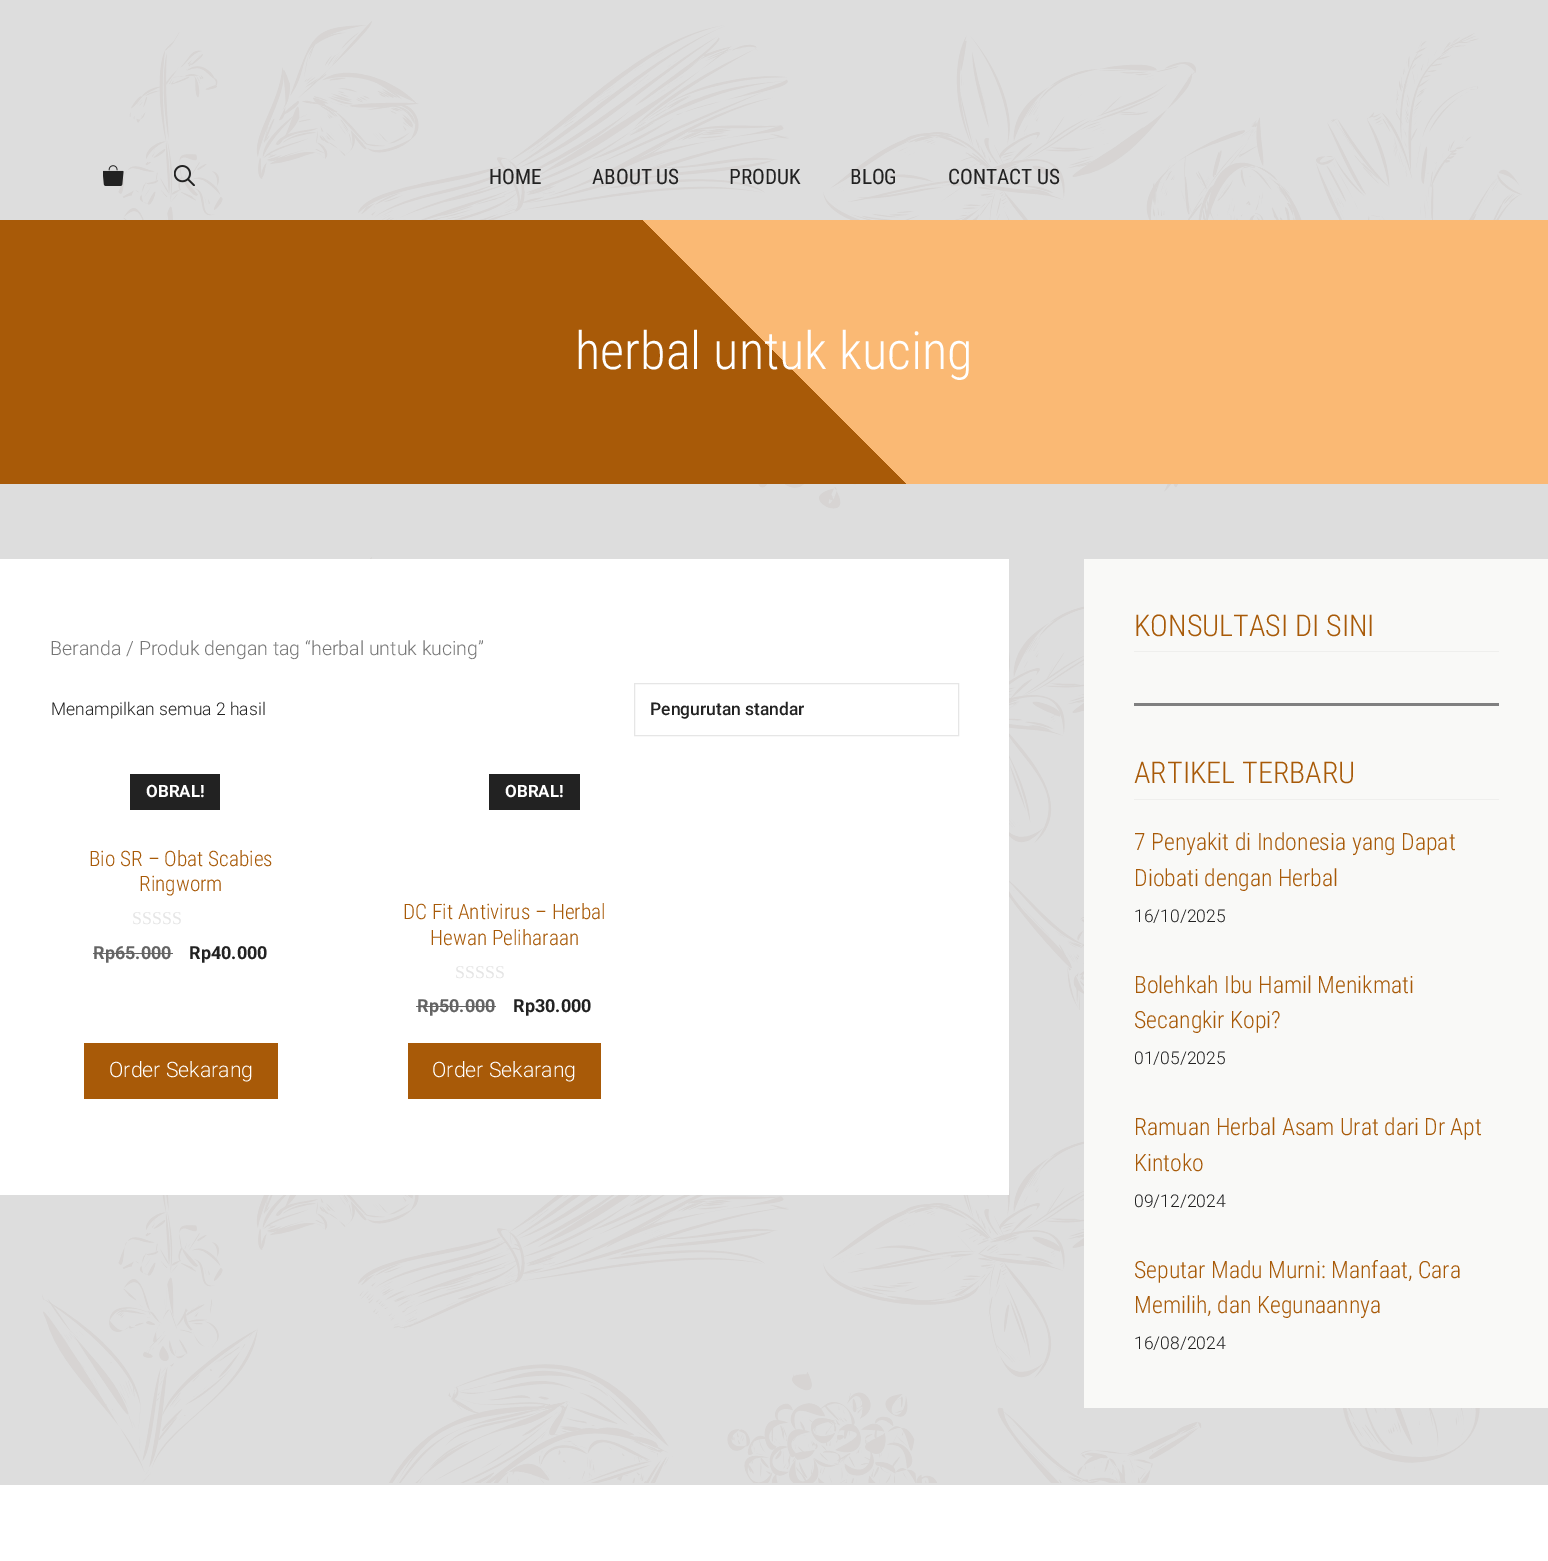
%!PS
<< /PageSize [1548 1561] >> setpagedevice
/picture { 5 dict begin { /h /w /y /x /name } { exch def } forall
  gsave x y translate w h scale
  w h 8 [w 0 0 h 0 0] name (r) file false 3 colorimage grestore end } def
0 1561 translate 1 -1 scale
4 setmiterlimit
0.867 setgray
0 0 1548 1561 rectfill
(img1.rgb) 42 21 1480 1462 picture
(img2.rgb) 103 165 21 21 picture
(img3.rgb) 174 165 21 21 picture
/RobotoCondensed-Regular [21.25 0 0 -21.25 0 0] selectfont
0.133 setgray
489 184 moveto (HOME) show
592 184 moveto (ABOUT US) show
729 184 moveto (PRODUK) show
850 184 moveto (BLOG) show
948 184 moveto (CONTACT US) show
gsave newpath 0 220 moveto 1548 220 lineto 1548 484 lineto 0 484 lineto closepath clip newpath
<< /ShadingType 2 /ColorSpace /DeviceRGB /Coords [1228 -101 321 805] /Extend [true true] /Function << /FunctionType 3 /Domain [0 1] /Functions [<< /FunctionType 2 /Domain [0 1] /C0 [0.98 0.725 0.455] /C1 [0.98 0.725 0.455] /N 1 >> << /FunctionType 2 /Domain [0 1] /C0 [0.659 0.353 0.031] /C1 [0.659 0.353 0.031] /N 1 >>] /Bounds [0.5] /Encode [0 1 0 1] >> >> shfill grestore
/RobotoCondensed-Light [52.5 0 0 -52.5 0 0] selectfont
1 setgray
575 369 moveto (herbal untuk kucing) show
0 559 1009 636 rectfill
/Roboto-Light [19.55 0 0 -19.55 0 0] selectfont
0.463 setgray
50 655 moveto (Beranda / Produk dengan tag “herbal untuk kucing”) show
/Roboto-Light [17.5 0 0 -17.5 0 0] selectfont
0.133 setgray
51 715 moveto (Menampilkan semua 2 hasil) show
0.902 setgray
634.5 683.5 324 52 rectstroke
/Roboto-Medium [17.5 0 0 -17.5 0 0] selectfont
0.133 setgray
650 715 moveto (Pengurutan standar) show
130 774 90 36 rectfill
/Roboto-Bold [17 0 0 -17 0 0] selectfont
1 setgray
146 797 moveto (OBRAL!) show
/RobotoCondensed-Light [21.25 0 0 -21.25 0 0] selectfont
0.659 0.353 0.031 setrgbcolor
89 866 moveto (Bio SR – Obat Scabies) show
139 891 moveto (Ringworm) show
/LiberationSerif-Regular [18 0 0 -18 0 0] selectfont
0.898 setgray
132 924 moveto (SSSSS) show
/Roboto-Bold [18 0 0 -18 0 0] selectfont
0.392 setgray
93 959 moveto (Rp65.000) show
93 953 80 1 rectfill
0.133 setgray
189 959 moveto (Rp40.000) show
0.659 0.353 0.031 setrgbcolor
84 1043 194 56 rectfill
/Roboto-Light [21.25 0 0 -21.25 0 0] selectfont
1 setgray
109 1077 moveto (Order Sekarang) show
0.133 setgray
489 774 91 36 rectfill
/Roboto-Bold [17 0 0 -17 0 0] selectfont
1 setgray
505 797 moveto (OBRAL!) show
/RobotoCondensed-Light [21.25 0 0 -21.25 0 0] selectfont
0.659 0.353 0.031 setrgbcolor
403 919 moveto (DC Fit Antivirus – Herbal) show
430 945 moveto (Hewan Peliharaan) show
/LiberationSerif-Regular [18 0 0 -18 0 0] selectfont
0.898 setgray
455 978 moveto (SSSSS) show
/Roboto-Bold [18 0 0 -18 0 0] selectfont
0.392 setgray
417 1012 moveto (Rp50.000) show
416 1006 80 1 rectfill
0.133 setgray
513 1012 moveto (Rp30.000) show
0.659 0.353 0.031 setrgbcolor
408 1043 193 56 rectfill
/Roboto-Light [21.25 0 0 -21.25 0 0] selectfont
1 setgray
432 1077 moveto (Order Sekarang) show
0.976 0.976 0.969 setrgbcolor
1084 559 464 849 rectfill
0.937 0.937 0.929 setrgbcolor
1134 651 365 1 rectfill
/RobotoCondensed-Light [30 0 0 -30 0 0] selectfont
0.659 0.353 0.031 setrgbcolor
1134 636 moveto (KONSULTASI DI SINI) show
0.502 setgray
1134 703 365 3 rectfill
0.937 0.937 0.929 setrgbcolor
1134 799 365 1 rectfill
0.659 0.353 0.031 setrgbcolor
1134 783 moveto (ARTIKEL TERBARU) show
/RobotoCondensed-Light [23.75 0 0 -23.75 0 0] selectfont
1134 850 moveto (7 Penyakit di Indonesia yang Dapat) show
1134 886 moveto (Diobati dengan Herbal) show
/Roboto-Light [17.5 0 0 -17.5 0 0] selectfont
0.133 setgray
1134 922 moveto (16/10/2025) show
/RobotoCondensed-Light [23.75 0 0 -23.75 0 0] selectfont
0.659 0.353 0.031 setrgbcolor
1134 993 moveto (Bolehkah Ibu Hamil Menikmati) show
1134 1028 moveto (Secangkir Kopi?) show
/Roboto-Light [17.5 0 0 -17.5 0 0] selectfont
0.133 setgray
1134 1064 moveto (01/05/2025) show
/RobotoCondensed-Light [23.75 0 0 -23.75 0 0] selectfont
0.659 0.353 0.031 setrgbcolor
1134 1135 moveto (Ramuan Herbal Asam Urat dari Dr Apt) show
1134 1171 moveto (Kintoko) show
/Roboto-Light [17.5 0 0 -17.5 0 0] selectfont
0.133 setgray
1134 1207 moveto (09/12/2024) show
/RobotoCondensed-Light [23.75 0 0 -23.75 0 0] selectfont
0.659 0.353 0.031 setrgbcolor
1134 1278 moveto (Seputar Madu Murni: Manfaat, Cara) show
1134 1313 moveto (Memilih, dan Kegunaannya) show
/Roboto-Light [17.5 0 0 -17.5 0 0] selectfont
0.133 setgray
1134 1349 moveto (16/08/2024) show
1 setgray
0 1485 1548 76 rectfill
showpage
